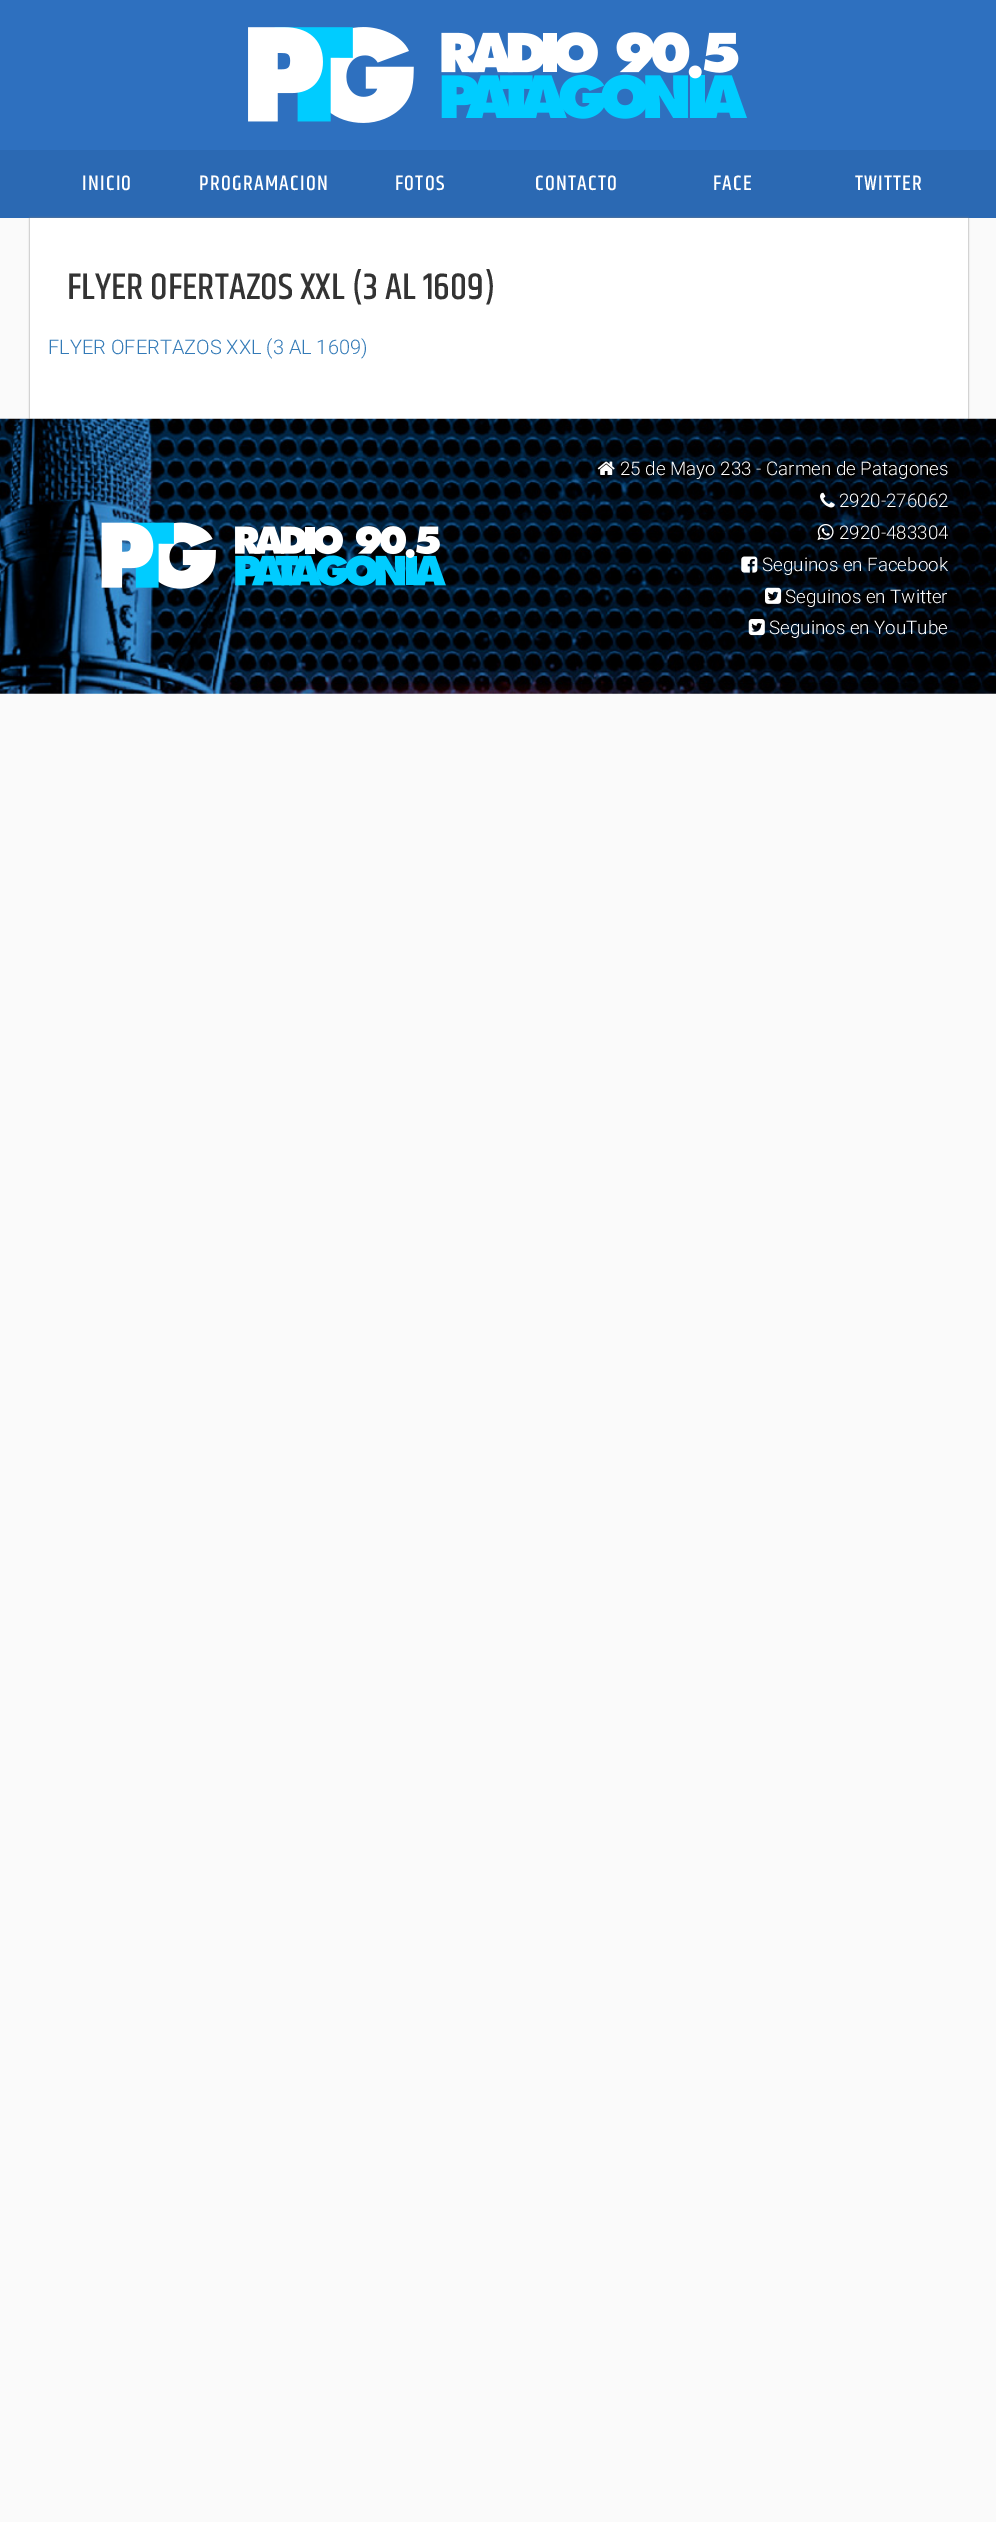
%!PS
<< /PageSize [996 2522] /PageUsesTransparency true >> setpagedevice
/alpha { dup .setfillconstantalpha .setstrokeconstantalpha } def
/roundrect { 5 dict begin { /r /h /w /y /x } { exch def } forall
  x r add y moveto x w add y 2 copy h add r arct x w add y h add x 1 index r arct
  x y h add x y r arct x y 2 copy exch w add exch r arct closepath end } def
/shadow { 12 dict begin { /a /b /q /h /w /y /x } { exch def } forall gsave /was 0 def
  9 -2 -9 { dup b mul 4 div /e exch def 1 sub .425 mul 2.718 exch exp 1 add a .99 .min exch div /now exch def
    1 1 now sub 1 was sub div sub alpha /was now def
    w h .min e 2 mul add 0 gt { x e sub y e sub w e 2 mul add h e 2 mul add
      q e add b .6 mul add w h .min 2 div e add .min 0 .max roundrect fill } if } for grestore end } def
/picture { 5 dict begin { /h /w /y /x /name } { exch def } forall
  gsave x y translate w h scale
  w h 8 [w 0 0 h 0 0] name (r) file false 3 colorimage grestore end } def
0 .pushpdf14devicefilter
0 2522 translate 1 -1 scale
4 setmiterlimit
0.98 setgray
0 0 996 2522 rectfill
0.18 0.439 0.749 setrgbcolor
0 0 996 150 rectfill
(img1.rgb) 248 27 499 96 picture
0.169 0.412 0.702 setrgbcolor
0 150 996 68 rectfill
/Khand-Medium [21.25 0 0 -21.25 0 0] selectfont
1 setgray
82 190 moveto 1.25 0 (INICIO) ashow
199 190 moveto 1.25 0 (PROGRAMACION) ashow
395 190 moveto 1.25 0 (FOTOS) ashow
535 190 moveto 1.25 0 (CONTACTO) ashow
713 190 moveto 1.25 0 (FACE) ashow
855 190 moveto 1.25 0 (TWITTER) ashow
0.502 setgray
30 218 938 201 0 1 1 shadow
1 setgray
30 218 938 201 rectfill
/Khand-Medium [37.5 0 0 -37.5 0 0] selectfont
0.2 setgray
67 299 moveto (FLYER OFERTAZOS XXL \(3 AL 1609\)) show
/Roboto-Light [20 0 0 -20 0 0] selectfont
0.2 0.478 0.718 setrgbcolor
48 354 moveto (FLYER OFERTAZOS XXL \(3 AL 1609\)) show
(img2.rgb) 0 418 996 276 picture
(img3.rgb) 101 522 345 67 picture
(img4.rgb) 597 461 18 14 picture
/Roboto-Light [18.75 0 0 -18.75 0 0] selectfont
1 setgray
620 475 moveto (25 de Mayo 233 - Carmen de Patagones) show
(img5.rgb) 820 492 15 16 picture
839 507 moveto (2920-276062) show
(img6.rgb) 817 524 17 17 picture
839 539 moveto (2920-483304) show
(img7.rgb) 741 556 17 17 picture
762 571 moveto (Seguinos en Facebook) show
(img8.rgb) 765 587 17 17 picture
785 603 moveto (Seguinos en Twitter) show
(img9.rgb) 748 619 17 17 picture
769 634 moveto (Seguinos en YouTube) show
.poppdf14devicefilter showpage
